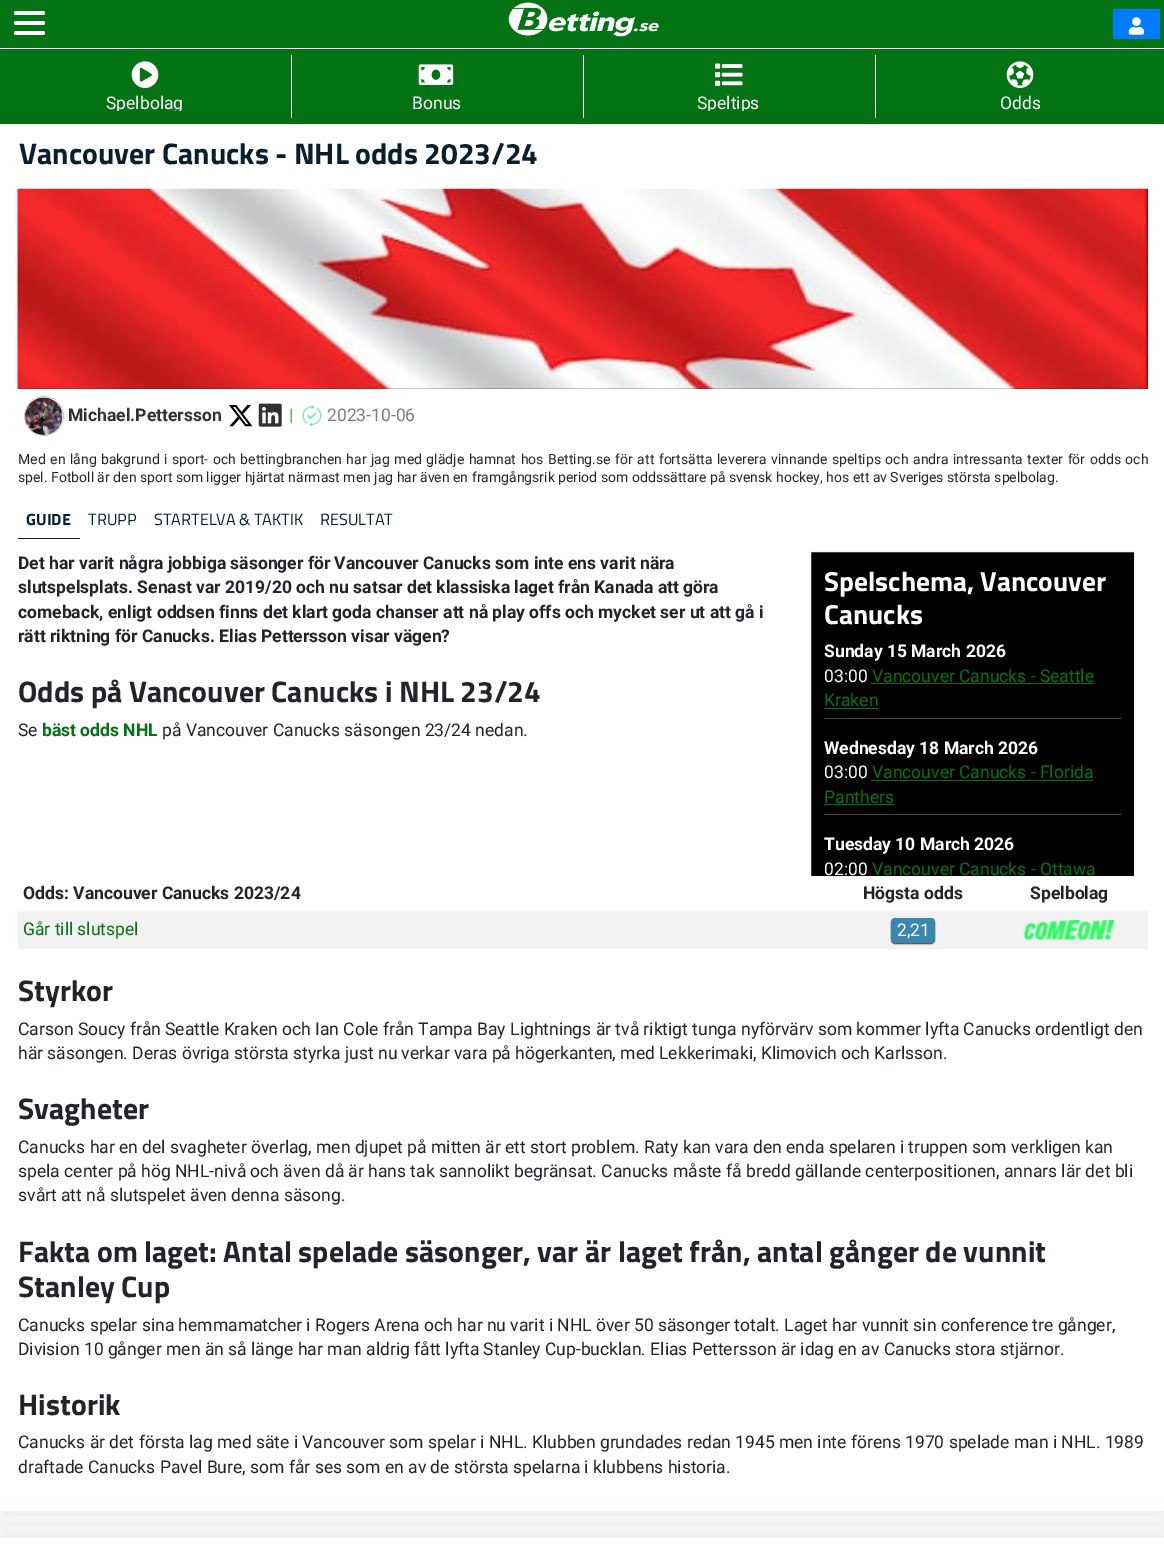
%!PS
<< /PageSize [1164 1549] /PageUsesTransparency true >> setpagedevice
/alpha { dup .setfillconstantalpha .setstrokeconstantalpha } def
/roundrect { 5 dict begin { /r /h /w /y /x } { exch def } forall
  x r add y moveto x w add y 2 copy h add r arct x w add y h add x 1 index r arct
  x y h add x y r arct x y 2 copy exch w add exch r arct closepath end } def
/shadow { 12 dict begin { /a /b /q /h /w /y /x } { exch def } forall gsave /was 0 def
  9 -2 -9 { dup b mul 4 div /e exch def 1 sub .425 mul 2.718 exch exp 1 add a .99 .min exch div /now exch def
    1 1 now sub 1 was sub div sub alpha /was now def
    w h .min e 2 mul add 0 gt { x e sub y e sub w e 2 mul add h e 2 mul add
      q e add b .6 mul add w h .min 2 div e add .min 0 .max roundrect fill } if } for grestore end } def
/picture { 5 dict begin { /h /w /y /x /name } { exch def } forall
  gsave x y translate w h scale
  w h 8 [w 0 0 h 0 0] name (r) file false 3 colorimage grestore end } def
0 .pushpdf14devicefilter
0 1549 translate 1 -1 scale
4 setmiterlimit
0.012 0.451 0.075 setrgbcolor
0 0 1164 1549 rectfill
1 setgray
14 11 31 4 2 roundrect fill
14 21 31 4 2 roundrect fill
14 31 31 4 2 roundrect fill
(img1.rgb) 508 2 151 35 picture
0 0.482 1 setrgbcolor
1113 9 47 30 rectfill
(img2.rgb) 1128 17 17 18 picture
1 setgray
0 48 1164 1 rectfill
0 124 1164 1414 rectfill
(img3.rgb) 131 61 28 27 picture
gsave
106 91 77 20 rectclip
/Roboto-Regular [17.5 0 0 -17.5 0 0] selectfont
106 109 moveto (Spelbolag) show
grestore
291 55 1 63 rectfill
(img4.rgb) 418 64 36 21 picture
/Roboto-Regular [17.5 0 0 -17.5 0 0] selectfont
412 109 moveto (Bonus) show
583 55 1 63 rectfill
(img5.rgb) 715 63 28 23 picture
gsave
698 91 62 20 rectclip
697 109 moveto (Speltips) show
grestore
875 55 1 63 rectfill
(img6.rgb) 1006 61 28 27 picture
1000 109 moveto (Odds) show
gsave
newpath 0 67 moveto 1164 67 lineto 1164 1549 lineto 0 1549 lineto closepath 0 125 moveto 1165 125 lineto 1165 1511 lineto 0 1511 lineto closepath eoclip newpath
0 setgray
0 125 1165 1386 0 19 0.1 shadow
grestore
/TitilliumWeb-Bold [29.75 0 0 -29.75 0 0] selectfont
0.031 0.125 0.176 setrgbcolor
19 164 moveto (Vancouver Canucks - NHL odds 2023/24) show
18 189 1130 200 rectfill
(img7.rgb) 17 188 1131 201 picture
0.8 setgray
newpath 44 416 19.5 0 360 arc closepath stroke
(img8.rgb) 25 397 38 38 picture
/Roboto-Bold [17.5 0 0 -17.5 0 0] selectfont
0.192 setgray
68 421 moveto (Michael.Pettersson) show
(img9.rgb) 229 404 24 23 picture
(img10.rgb) 258 403 24 24 picture
0.349 0.733 0.353 setrgbcolor
289 421 moveto (|) show
(img11.rgb) 302 405 20 22 picture
/Roboto-Regular [17.5 0 0 -17.5 0 0] selectfont
0.478 0.486 0.498 setrgbcolor
327 421 moveto (2023-10-06) show
/Roboto-Regular [14 0 0 -14 0 0] selectfont
0.129 0.145 0.161 setrgbcolor
18 464 moveto 1.1 0 32 (Med en lång bakgrund i sport- och bettingbranchen har jag med glädje hamnat hos Betting.se för att fortsätta leverera vinnande speltips och andra intressanta texter för odds och) widthshow
18 482 moveto (spel. Fotboll är den sport som ligger hjärtat närmast men jag har även en framgångsrik period som oddssättare på svensk hockey, hos ett av Sveriges största spelbolag.) show
/TitilliumWeb-Bold [16.25 0 0 -16.25 0 0] selectfont
0.031 0.125 0.176 setrgbcolor
26 525 moveto (GUIDE) show
18 538 62 1 rectfill
/TitilliumWeb-Regular [16.25 0 0 -16.25 0 0] selectfont
88 525 moveto (TRUPP) show
154 525 moveto (STARTELVA & TAKTIK) show
320 525 moveto (RESULTAT) show
/Roboto-Bold [17.5 0 0 -17.5 0 0] selectfont
0.129 0.145 0.161 setrgbcolor
18 569 moveto (Det har varit några jobbiga säsonger för Vancouver Canucks som inte ens varit nära) show
18 593 moveto (slutspelsplats. Senast var 2019/20 och nu satsar det klassiska laget från Kanada att göra) show
18 618 moveto (comeback, enligt oddsen finns det klart goda chanser att nå play offs och mycket ser ut att gå i) show
18 642 moveto (rätt riktning för Canucks. Elias Pettersson visar vägen?) show
/TitilliumWeb-Bold [29.75 0 0 -29.75 0 0] selectfont
18 702 moveto (Odds på Vancouver Canucks i NHL 23/24) show
/Roboto-Regular [17.5 0 0 -17.5 0 0] selectfont
18 736 moveto (Se) show
/Roboto-Bold [17.5 0 0 -17.5 0 0] selectfont
0.012 0.451 0.075 setrgbcolor
42 736 moveto (bäst odds NHL) show
/Roboto-Regular [17.5 0 0 -17.5 0 0] selectfont
0.129 0.145 0.161 setrgbcolor
162 736 moveto (på Vancouver Canucks säsongen 23/24 nedan.) show
/Roboto-Bold [17.5 0 0 -17.5 0 0] selectfont
23 899 moveto (Odds: Vancouver Canucks 2023/24) show
863 899 moveto (Högsta odds) show
0.961 setgray
18 911 1131 1 rectfill
0.129 0.145 0.161 setrgbcolor
1030 899 moveto (Spelbolag) show
0.949 setgray
18 912 1130 37 rectfill
/Roboto-Regular [17.5 0 0 -17.5 0 0] selectfont
0.012 0.451 0.075 setrgbcolor
23 935 moveto (Går till slutspel) show
0 setgray
891 919 44 25 4 0.5 0.7 shadow
0.227 0.529 0.678 setrgbcolor
891 918 44 25 4 roundrect fill
1 setgray
897 936 moveto (2,21) show
(img12.rgb) 1023 920 93 20 picture
/TitilliumWeb-Bold [29.75 0 0 -29.75 0 0] selectfont
0.129 0.145 0.161 setrgbcolor
18 1001 moveto (Styrkor) show
/Roboto-Regular [17.5 0 0 -17.5 0 0] selectfont
18 1035 moveto (Carson Soucy från Seattle Kraken och Ian Cole från Tampa Bay Lightnings är två riktigt tunga nyförvärv som kommer lyfta Canucks ordentligt den) show
18 1059 moveto (här säsongen. Deras övriga största styrka just nu verkar vara på högerkanten, med Lekkerimaki, Klimovich och Karlsson.) show
/TitilliumWeb-Bold [29.75 0 0 -29.75 0 0] selectfont
18 1119 moveto (Svagheter) show
/Roboto-Regular [17.5 0 0 -17.5 0 0] selectfont
18 1153 moveto (Canucks har en del svagheter överlag, men djupet på mitten är ett stort problem. Raty kan vara den enda spelaren i truppen som verkligen kan) show
18 1177 moveto (spela center på hög NHL-nivå och även då är hans tak sannolikt begränsat. Canucks måste få bredd gällande centerpositionen, annars lär det bli) show
18 1201 moveto (svårt att nå slutspelet även denna säsong.) show
/TitilliumWeb-Bold [29.75 0 0 -29.75 0 0] selectfont
18 1262 moveto (Fakta om laget: Antal spelade säsonger, var är laget från, antal gånger de vunnit) show
18 1297 moveto (Stanley Cup) show
/Roboto-Regular [17.5 0 0 -17.5 0 0] selectfont
18 1331 moveto (Canucks spelar sina hemmamatcher i Rogers Arena och har nu varit i NHL över 50 säsonger totalt. Laget har vunnit sin conference tre gånger,) show
18 1355 moveto (Division 10 gånger men än så länge har man aldrig fått lyfta Stanley Cup-bucklan. Elias Pettersson är idag en av Canucks stora stjärnor.) show
/TitilliumWeb-Bold [29.75 0 0 -29.75 0 0] selectfont
18 1415 moveto (Historik) show
/Roboto-Regular [17.5 0 0 -17.5 0 0] selectfont
18 1448 moveto (Canucks är det första lag med säte i Vancouver som spelar i NHL. Klubben grundades redan 1945 men inte förens 1970 spelade man i NHL. 1989) show
18 1473 moveto (draftade Canucks Pavel Bure, som får ses som en av de största spelarna i klubbens historia.) show
0 setgray
811 552 323 324 rectfill
gsave
798 551 350 325 rectclip
0.961 setgray
810.5 551.5 324 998 rectstroke
grestore
/TitilliumWeb-Bold [27.5 0 0 -27.5 0 0] selectfont
1 setgray
824 591 moveto (Spelschema, Vancouver) show
824 624 moveto (Canucks) show
/Roboto-Bold [17.5 0 0 -17.5 0 0] selectfont
824 657 moveto (Sunday 15 March 2026) show
/Roboto-Regular [17.5 0 0 -17.5 0 0] selectfont
824 682 moveto (03:00) show
0.012 0.451 0.075 setrgbcolor
872 682 moveto (Vancouver Canucks - Seattle) show
871 683 223 1 rectfill
824 706 moveto (Kraken) show
824 708 54 1 rectfill
0.263 setgray
824 718 297 1 rectfill
/Roboto-Bold [17.5 0 0 -17.5 0 0] selectfont
1 setgray
824 754 moveto (Wednesday 18 March 2026) show
/Roboto-Regular [17.5 0 0 -17.5 0 0] selectfont
824 778 moveto (03:00) show
0.012 0.451 0.075 setrgbcolor
872 778 moveto (Vancouver Canucks - Florida) show
871 780 222 1 rectfill
824 803 moveto (Panthers) show
824 804 70 1 rectfill
0.263 setgray
824 814 297 1 rectfill
/Roboto-Bold [17.5 0 0 -17.5 0 0] selectfont
1 setgray
824 850 moveto (Tuesday 10 March 2026) show
/Roboto-Regular [17.5 0 0 -17.5 0 0] selectfont
824 875 moveto (02:00) show
0.012 0.451 0.075 setrgbcolor
872 875 moveto (Vancouver Canucks - Ottawa) show
0 setgray
0 1538 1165 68 0 19 0.1 shadow
1 setgray
0 1538 1164 11 rectfill
.poppdf14devicefilter showpage
